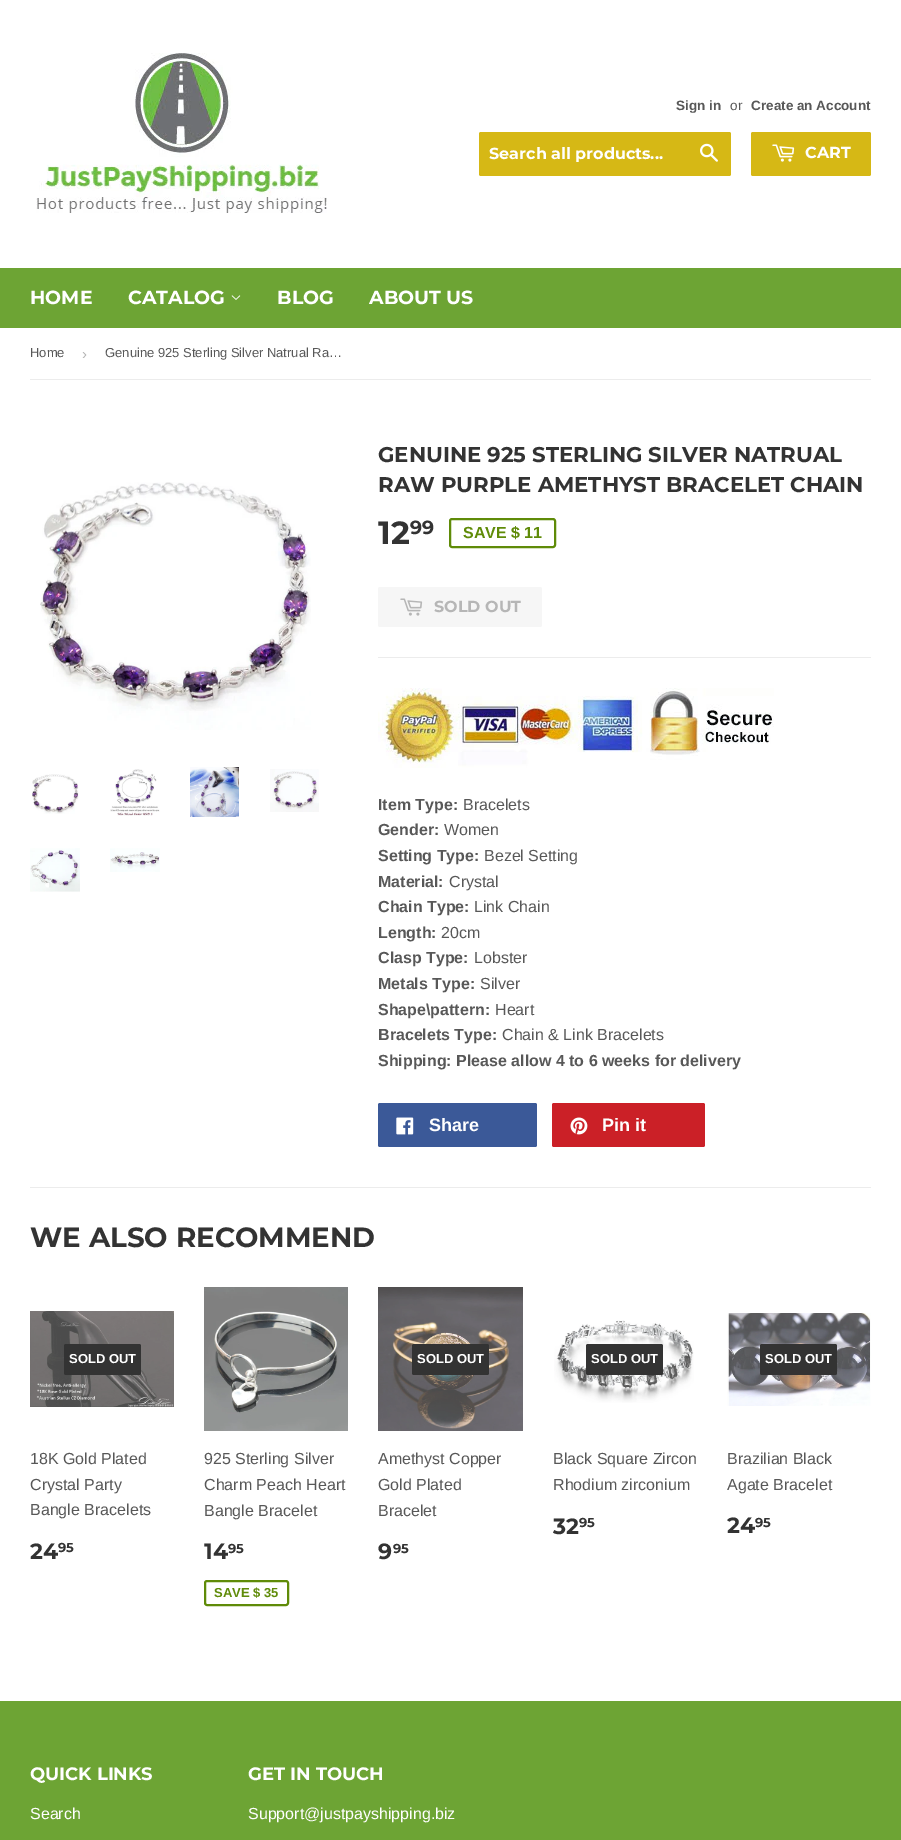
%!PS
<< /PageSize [901 1840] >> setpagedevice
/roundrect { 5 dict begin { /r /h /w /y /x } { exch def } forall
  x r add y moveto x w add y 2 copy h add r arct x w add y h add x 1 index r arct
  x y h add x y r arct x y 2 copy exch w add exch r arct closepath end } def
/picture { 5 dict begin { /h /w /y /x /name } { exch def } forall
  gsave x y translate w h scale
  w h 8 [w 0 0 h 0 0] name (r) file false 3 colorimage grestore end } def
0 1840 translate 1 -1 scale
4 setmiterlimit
1 setgray
0 0 901 1840 rectfill
(img1.rgb) 36 53 291 160 picture
/LiberationSans-Bold [13.5 0 0 -13.5 0 0] selectfont
0.345 setgray
676 110 moveto (Sign in) show
/LiberationSans-Regular [13.5 0 0 -13.5 0 0] selectfont
730 110 moveto (or) show
/LiberationSans-Bold [13.5 0 0 -13.5 0 0] selectfont
751 110 moveto (Create an Account) show
0.839 0.722 0.082 setrgbcolor
479 132 252 44 2 roundrect fill
/Montserrat-Thin [16 0 0 -16 0 0] selectfont
1 setgray
489 159 moveto (Search all products...) show
(img2.rgb) 700 143 18 19 picture
0.839 0.722 0.082 setrgbcolor
751 132 120 44 2 roundrect fill
(img3.rgb) 772 144 23 18 picture
1 setgray
805 158 moveto (CART) show
0.427 0.643 0.204 setrgbcolor
0 268 901 60 rectfill
/Montserrat-Thin [19 0 0 -19 0 0] selectfont
1 setgray
30 304 moveto (HOME) show
128 304 moveto (CATALOG) show
(img4.rgb) 231 295 10 5 picture
277 304 moveto (BLOG) show
369 304 moveto (ABOUT US) show
0.925 setgray
30 379 841 1 rectfill
/LiberationSans-Regular [13 0 0 -13 0 0] selectfont
0.345 setgray
30 357 moveto (Home) show
/LiberationSans-Regular [15 0 0 -15 0 0] selectfont
0.714 setgray
82 359 moveto (›) show
/LiberationSans-Regular [13 0 0 -13 0 0] selectfont
0.345 setgray
105 357 moveto (Genuine 925 Sterling Silver Natrual Ra…) show
(img5.rgb) 40 482 271 248 picture
(img6.rgb) 32 774 47 40 picture
(img7.rgb) 110 769 50 47 picture
(img8.rgb) 190 767 49 50 picture
(img9.rgb) 270 769 49 43 picture
(img10.rgb) 30 848 50 44 picture
(img11.rgb) 110 848 50 24 picture
/Montserrat-Thin [21.3 0 0 -21.3 0 0] selectfont
0.2 setgray
378 462 moveto (GENUINE 925 STERLING SILVER NATRUAL) show
378 492 moveto (RAW PURPLE AMETHYST BRACELET CHAIN) show
/Montserrat-Thin [32 0 0 -32 0 0] selectfont
378 544 moveto (12) show
/Montserrat-Thin [19 0 0 -19 0 0] selectfont
410 534 moveto (99) show
0.373 0.545 0.031 setrgbcolor
2 setlinewidth
450 519 105 28 2 roundrect stroke
/LiberationSans-Bold [16 0 0 -16 0 0] selectfont
463 538 moveto (SAVE $ 11) show
0.965 setgray
378 587 164 40 2 roundrect fill
(img12.rgb) 400 598 23 18 picture
/Montserrat-Thin [16 0 0 -16 0 0] selectfont
0.714 setgray
434 612 moveto (SOLD OUT) show
0.925 setgray
378 657 493 1 rectfill
(img13.rgb) 378 688 396 80 picture
/LiberationSans-Bold [16 0 0 -16 0 0] selectfont
0.345 setgray
378 810 moveto (Item Type:) show
/LiberationSans-Regular [16 0 0 -16 0 0] selectfont
463 810 moveto (Bracelets) show
/LiberationSans-Bold [16 0 0 -16 0 0] selectfont
378 835 moveto (Gender:) show
/LiberationSans-Regular [16 0 0 -16 0 0] selectfont
444 835 moveto (Women) show
/LiberationSans-Bold [16 0 0 -16 0 0] selectfont
378 861 moveto (Setting Type:) show
/LiberationSans-Regular [16 0 0 -16 0 0] selectfont
484 861 moveto (Bezel Setting) show
/LiberationSans-Bold [16 0 0 -16 0 0] selectfont
378 887 moveto (Material:) show
/LiberationSans-Regular [16 0 0 -16 0 0] selectfont
449 887 moveto (Crystal) show
/LiberationSans-Bold [16 0 0 -16 0 0] selectfont
378 912 moveto (Chain Type:) show
/LiberationSans-Regular [16 0 0 -16 0 0] selectfont
474 912 moveto (Link Chain) show
/LiberationSans-Bold [16 0 0 -16 0 0] selectfont
378 938 moveto (Length:) show
/LiberationSans-Regular [16 0 0 -16 0 0] selectfont
441 938 moveto (20cm) show
/LiberationSans-Bold [16 0 0 -16 0 0] selectfont
378 963 moveto (Clasp Type:) show
/LiberationSans-Regular [16 0 0 -16 0 0] selectfont
474 963 moveto (Lobster) show
/LiberationSans-Bold [16 0 0 -16 0 0] selectfont
378 989 moveto (Metals Type:) show
/LiberationSans-Regular [16 0 0 -16 0 0] selectfont
480 989 moveto (Silver) show
/LiberationSans-Bold [16 0 0 -16 0 0] selectfont
378 1015 moveto (Shape\\pattern:) show
/LiberationSans-Regular [16 0 0 -16 0 0] selectfont
495 1015 moveto (Heart) show
/LiberationSans-Bold [16 0 0 -16 0 0] selectfont
378 1040 moveto (Bracelets Type:) show
/LiberationSans-Regular [16 0 0 -16 0 0] selectfont
502 1040 moveto (Chain & Link Bracelets) show
/LiberationSans-Bold [16 0 0 -16 0 0] selectfont
378 1066 moveto (Shipping: Please allow 4 to 6 weeks for delivery) show
0.231 0.349 0.596 setrgbcolor
378 1103 159 44 2 roundrect fill
(img14.rgb) 396 1117 18 18 picture
/LiberationSans-Bold [18 0 0 -18 0 0] selectfont
1 setgray
429 1131 moveto (Share) show
0.796 0.125 0.153 setrgbcolor
552 1103 153 44 2 roundrect fill
(img15.rgb) 570 1117 18 18 picture
1 setgray
602 1131 moveto (Pin it) show
0.925 setgray
30 1187 841 1 rectfill
/Montserrat-Thin [27.75 0 0 -27.75 0 0] selectfont
0.2 setgray
30 1247 moveto (WE ALSO RECOMMEND) show
(img16.rgb) 30 1311 144 96 picture
64 1344 77 31 2 roundrect fill
/LiberationSans-Bold [13 0 0 -13 0 0] selectfont
1 setgray
69 1363 moveto (SOLD OUT) show
/LiberationSans-Regular [16 0 0 -16 0 0] selectfont
0.345 setgray
30 1464 moveto (18K Gold Plated) show
30 1490 moveto (Crystal Party) show
30 1515 moveto (Bangle Bracelets) show
/Montserrat-Thin [22 0 0 -22 0 0] selectfont
0.2 setgray
30 1559 moveto (24) show
/Montserrat-Thin [13 0 0 -13 0 0] selectfont
58 1552 moveto (95) show
(img17.rgb) 204 1287 144 144 picture
/LiberationSans-Regular [16 0 0 -16 0 0] selectfont
0.345 setgray
204 1464 moveto (925 Sterling Silver) show
204 1490 moveto (Charm Peach Heart) show
204 1516 moveto (Bangle Bracelet) show
/Montserrat-Thin [22 0 0 -22 0 0] selectfont
0.2 setgray
204 1559 moveto (14) show
/Montserrat-Thin [13 0 0 -13 0 0] selectfont
228 1553 moveto (95) show
0.373 0.545 0.031 setrgbcolor
205 1581 83 24 2 roundrect stroke
/LiberationSans-Bold [13 0 0 -13 0 0] selectfont
214 1597 moveto (SAVE $ 35) show
(img18.rgb) 378 1287 145 144 picture
0.2 setgray
412 1344 77 31 2 roundrect fill
1 setgray
417 1363 moveto (SOLD OUT) show
/LiberationSans-Regular [16 0 0 -16 0 0] selectfont
0.345 setgray
378 1464 moveto (Amethyst Copper) show
378 1490 moveto (Gold Plated) show
378 1516 moveto (Bracelet) show
/Montserrat-Thin [22 0 0 -22 0 0] selectfont
0.2 setgray
378 1559 moveto (9) show
/Montserrat-Thin [13 0 0 -13 0 0] selectfont
393 1553 moveto (95) show
(img19.rgb) 554 1320 140 83 picture
586 1344 77 31 2 roundrect fill
/LiberationSans-Bold [13 0 0 -13 0 0] selectfont
1 setgray
591 1363 moveto (SOLD OUT) show
/LiberationSans-Regular [16 0 0 -16 0 0] selectfont
0.345 setgray
553 1464 moveto (Black Square Zircon) show
553 1490 moveto (Rhodium zirconium) show
/Montserrat-Thin [22 0 0 -22 0 0] selectfont
0.2 setgray
553 1534 moveto (32) show
/Montserrat-Thin [13 0 0 -13 0 0] selectfont
579 1527 moveto (95) show
(img20.rgb) 727 1313 144 93 picture
760 1344 77 31 2 roundrect fill
/LiberationSans-Bold [13 0 0 -13 0 0] selectfont
1 setgray
765 1363 moveto (SOLD OUT) show
/LiberationSans-Regular [16 0 0 -16 0 0] selectfont
0.345 setgray
727 1464 moveto (Brazilian Black) show
727 1490 moveto (Agate Bracelet) show
/Montserrat-Thin [22 0 0 -22 0 0] selectfont
0.2 setgray
727 1533 moveto (24) show
/Montserrat-Thin [13 0 0 -13 0 0] selectfont
755 1527 moveto (95) show
0.427 0.643 0.204 setrgbcolor
0 1701 901 139 rectfill
/Montserrat-Thin [18 0 0 -18 0 0] selectfont
1 setgray
30 1780 moveto (QUICK LINKS) show
/LiberationSans-Regular [16 0 0 -16 0 0] selectfont
30 1819 moveto (Search) show
/Montserrat-Thin [18 0 0 -18 0 0] selectfont
248 1780 moveto (GET IN TOUCH) show
/LiberationSans-Regular [16 0 0 -16 0 0] selectfont
248 1819 moveto (Support@justpayshipping.biz) show
showpage
